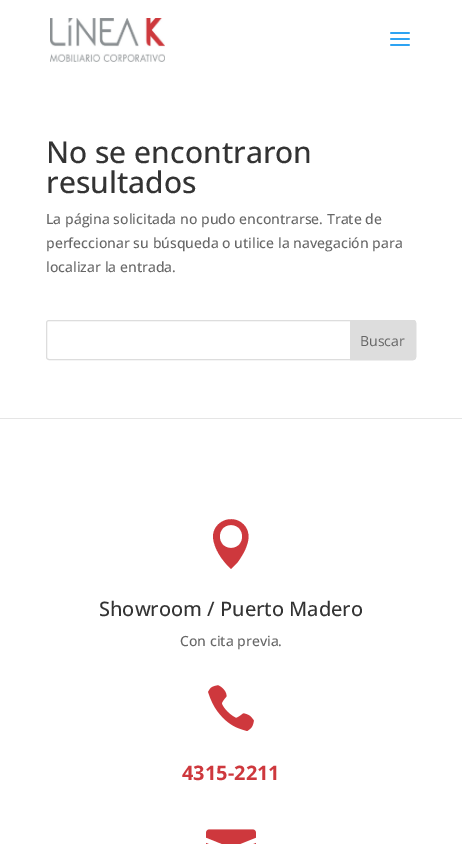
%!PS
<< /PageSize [462 844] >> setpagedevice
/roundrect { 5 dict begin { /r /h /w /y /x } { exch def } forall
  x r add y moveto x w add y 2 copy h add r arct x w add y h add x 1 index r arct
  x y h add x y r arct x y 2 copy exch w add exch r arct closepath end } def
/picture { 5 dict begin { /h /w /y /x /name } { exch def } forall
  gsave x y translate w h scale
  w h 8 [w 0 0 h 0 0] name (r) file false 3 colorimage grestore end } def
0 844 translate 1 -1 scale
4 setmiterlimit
1 setgray
0 0 462 844 rectfill
(img1.rgb) 50 18 115 44 picture
(img2.rgb) 390 32 20 14 picture
/OpenSans-Medium [30 0 0 -30 0 0] selectfont
0.2 setgray
46 163 moveto (No se encontraron) show
46 193 moveto (resultados) show
/OpenSans-Medium [14 0 0 -14 0 0] selectfont
0.4 setgray
46 224 moveto (La página solicitada no pudo encontrarse. Trate de) show
46 248 moveto (perfeccionar su búsqueda o utilice la navegación para) show
46 272 moveto (localizar la entrada.) show
0.867 setgray
46.5 320.5 369 39 2.5 roundrect stroke
newpath 350.5 320.5 moveto 413 320.5 lineto 414.5 320.5 415.5 321.5 415.5 323 curveto 415.5 357 lineto 415.5 358.5 414.5 359.5 413 359.5 curveto 350.5 359.5 lineto closepath gsave fill grestore
stroke
/OpenSans-Regular [14 0 0 -14 0 0] selectfont
0.4 setgray
360 346 moveto (Buscar) show
0.898 setgray
0 418 462 1 rectfill
0.808 0.22 0.239 setrgbcolor
newpath 230 568 moveto 231 569 lineto 237 563 lineto 245 552 254 536 244 525 curveto 233 513 213 521 213 537 curveto 214 549 222 560 230 568 curveto closepath 231 525 moveto 246 525 246 548 231 548 curveto 216 548 216 525 231 525 curveto closepath fill
/OpenSans-Medium [20 0 0 -20 0 0] selectfont
0.2 setgray
99 616 moveto (Showroom / Puerto Madero) show
/OpenSans-Medium [14 0 0 -14 0 0] selectfont
0.4 setgray
180 646 moveto (Con cita previa.) show
(img3.rgb) 208 685 46 46 picture
/OpenSans-Bold [20 0 0 -20 0 0] selectfont
0.808 0.22 0.239 setrgbcolor
182 780 moveto (4315-2211) show
(img4.rgb) 206 829 50 15 picture
showpage
